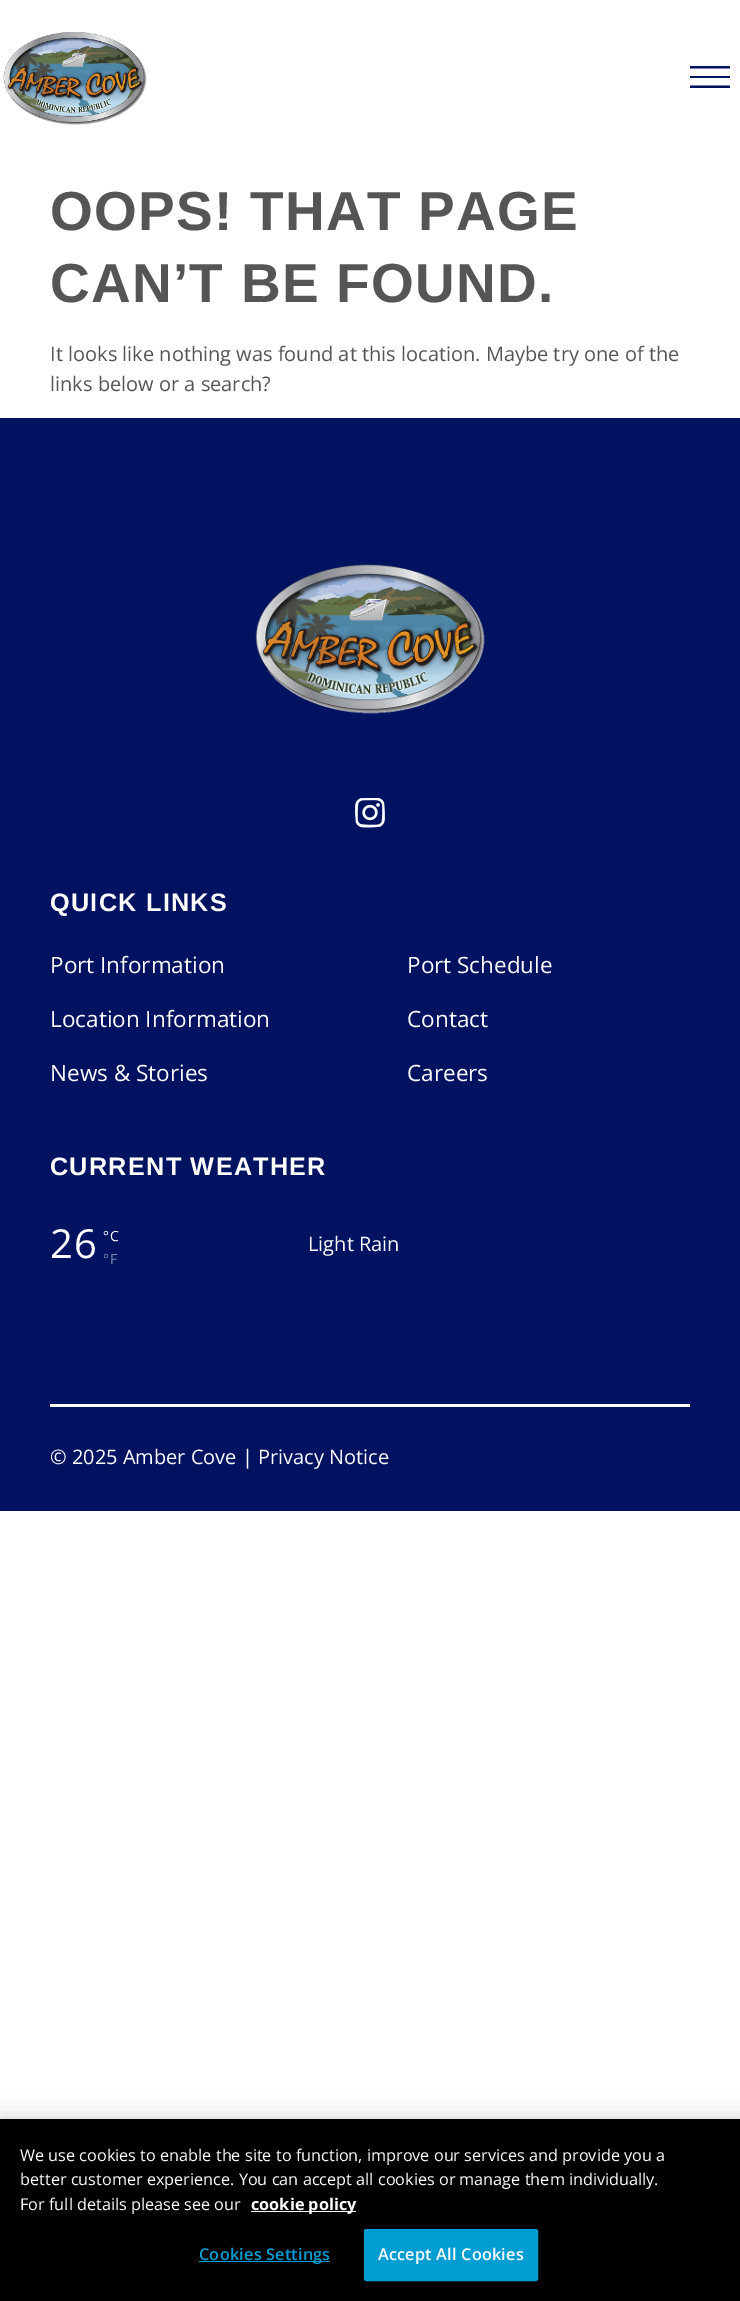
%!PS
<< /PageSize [740 2301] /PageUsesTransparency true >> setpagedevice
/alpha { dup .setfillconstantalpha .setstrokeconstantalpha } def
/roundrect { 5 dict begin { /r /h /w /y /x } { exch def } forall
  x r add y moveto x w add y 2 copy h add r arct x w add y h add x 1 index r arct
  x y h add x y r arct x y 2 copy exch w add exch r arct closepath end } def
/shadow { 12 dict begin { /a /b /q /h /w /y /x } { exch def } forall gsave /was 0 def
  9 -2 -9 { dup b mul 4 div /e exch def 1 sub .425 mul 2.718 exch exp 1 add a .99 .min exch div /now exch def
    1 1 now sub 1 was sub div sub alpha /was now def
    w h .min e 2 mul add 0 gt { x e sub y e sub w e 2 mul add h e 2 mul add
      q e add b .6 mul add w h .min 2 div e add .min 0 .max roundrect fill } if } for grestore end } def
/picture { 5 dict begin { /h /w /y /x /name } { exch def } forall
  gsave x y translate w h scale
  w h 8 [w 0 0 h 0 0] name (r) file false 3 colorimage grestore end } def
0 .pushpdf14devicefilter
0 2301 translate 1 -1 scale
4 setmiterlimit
1 setgray
0 0 740 2301 rectfill
(img1.rgb) 3 32 144 93 picture
0 0.071 0.376 setrgbcolor
newpath 690 85.5 moveto 730 85.5 lineto 730 88 lineto 690 88 lineto closepath 690 76 moveto 730 76 lineto 730 78 lineto 690 78 lineto closepath 690 66 moveto 730 66 lineto 730 68.5 lineto 690 68.5 lineto closepath eofill
/LiberationSans-Bold [55 0 0 -55 0 0] selectfont
0.333 setgray
50 230 moveto 1.25 0 (OOPS! THAT PAGE) ashow
50 302 moveto 1.25 0 (CAN’T BE FOUND.) ashow
/OpenSans-Regular [20 0 0 -20 0 0] selectfont
50 361 moveto (It looks like nothing was found at this location. Maybe try one of the) show
50 391 moveto (links below or a search?) show
0 0.071 0.376 setrgbcolor
0 418 740 1093 rectfill
(img2.rgb) 255 564 230 150 picture
(img3.rgb) 355 798 30 30 picture
/LiberationSans-Bold [25.25 0 0 -25.25 0 0] selectfont
1 setgray
50 911 moveto 1.25 0 (QUICK LINKS) ashow
/OpenSans-Regular [22.5 0 0 -22.5 0 0] selectfont
50 973 moveto (Port Information) show
407 973 moveto (Port Schedule) show
50 1027 moveto (Location Information) show
407 1027 moveto (Contact) show
50 1081 moveto (News & Stories) show
407 1081 moveto (Careers) show
/LiberationSans-Bold [25.25 0 0 -25.25 0 0] selectfont
50 1175 moveto 1.25 0 (CURRENT WEATHER) ashow
/OpenSans-Regular [40 0 0 -40 0 0] selectfont
50 1258 moveto 1.25 0 (26) ashow
/OpenSans-Regular [14 0 0 -14 0 0] selectfont
103 1241 moveto 1.25 0 (°C) ashow
0.502 0.537 0.69 setrgbcolor
103 1264 moveto 1.25 0 (°F) ashow
/OpenSans-Regular [20 0 0 -20 0 0] selectfont
1 setgray
308 1251 moveto (Light Rain) show
50 1404 640 3 rectfill
50 1464 moveto (© 2025 Amber Cove | Privacy Notice) show
0 setgray
0 2119 740 182 0 11 0.2 shadow
0 2119 740 182 rectfill
/OpenSans-Regular [16.25 0 0 -16.25 0 0] selectfont
1 setgray
20 2161 moveto (We use cookies to enable the site to function, improve our services and provide you a) show
20 2185 moveto (better customer experience. You can accept all cookies or manage them individually.) show
20 2210 moveto (For full details please see our) show
251 2211 105 1 rectfill
/OpenSans-Bold [16.25 0 0 -16.25 0 0] selectfont
251 2210 moveto (cookie policy) show
0 0.616 0.824 setrgbcolor
199 2261 131 1 rectfill
/OpenSans-SemiBold [16.25 0 0 -16.25 0 0] selectfont
199 2260 moveto 0.2 0 (Cookies Settings) ashow
364.5 2229.5 173 51 2 roundrect gsave fill grestore
stroke
1 setgray
378 2260 moveto 0.2 0 (Accept All Cookies) ashow
.poppdf14devicefilter showpage
